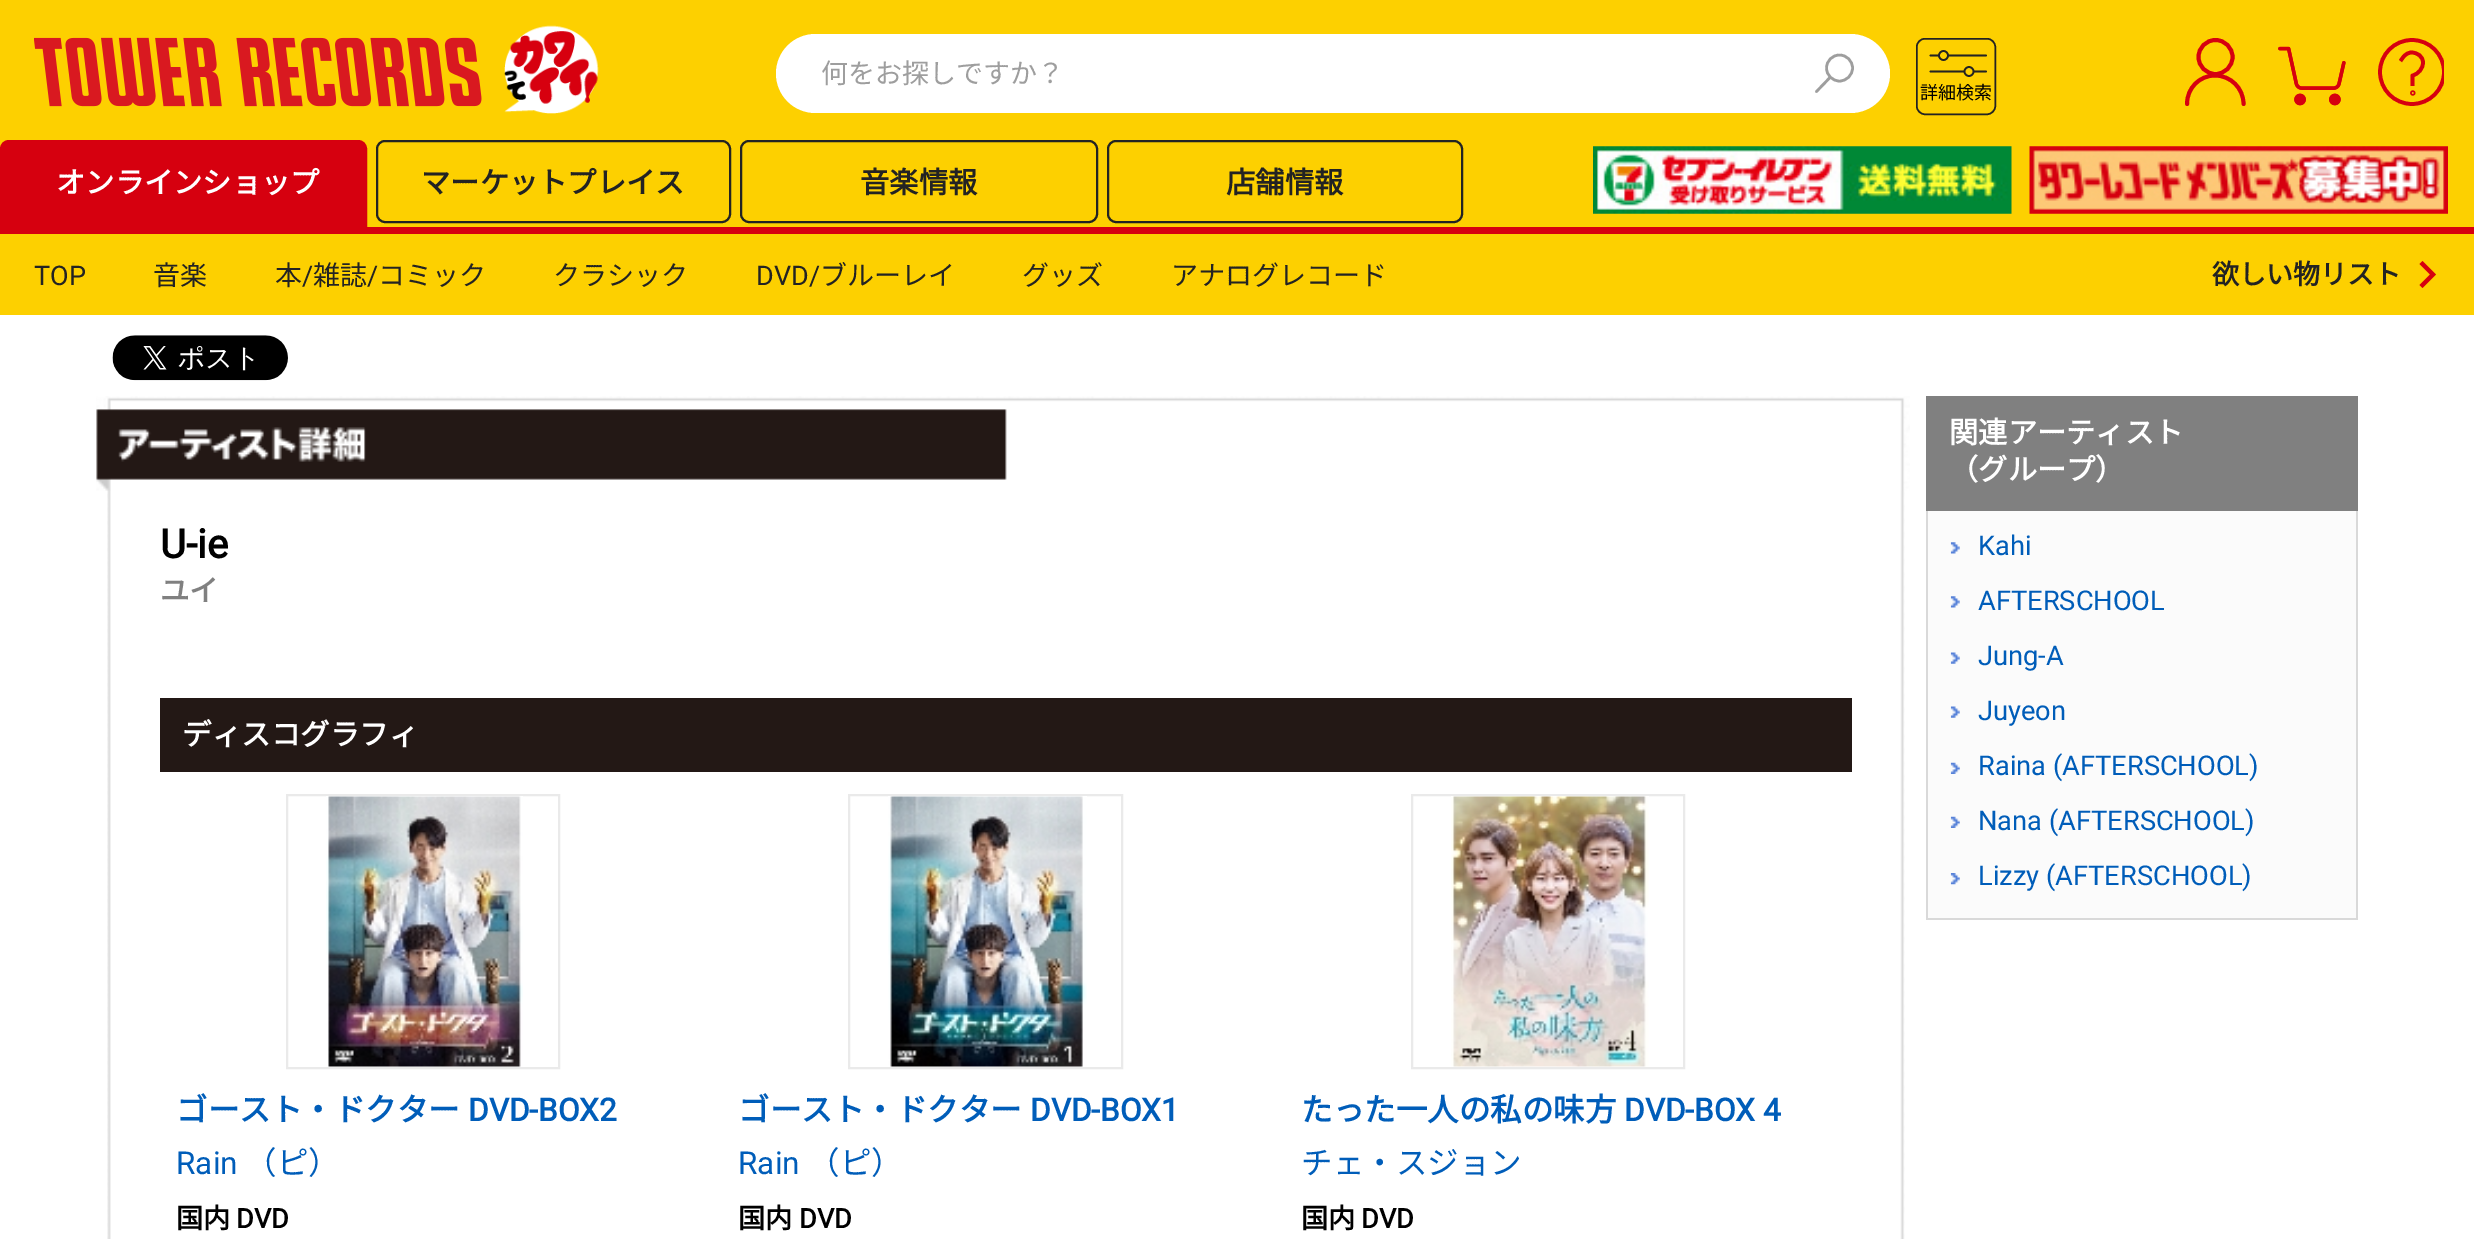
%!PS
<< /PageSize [2474 1239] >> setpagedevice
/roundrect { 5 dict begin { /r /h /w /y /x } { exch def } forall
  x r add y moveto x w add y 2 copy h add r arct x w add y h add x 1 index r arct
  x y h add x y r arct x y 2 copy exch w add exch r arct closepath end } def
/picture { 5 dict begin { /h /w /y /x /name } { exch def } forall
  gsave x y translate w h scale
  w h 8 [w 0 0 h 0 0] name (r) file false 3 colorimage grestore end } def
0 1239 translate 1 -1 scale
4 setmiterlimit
1 setgray
0 0 2474 1239 rectfill
0.992 0.816 0 setrgbcolor
0 0 2474 315 rectfill
(img1.rgb) 34 37 448 70 picture
(img2.rgb) 504 25 95 89 picture
1 setgray
776 34 1114 79 39.5 roundrect fill
/NotoSansJP-Thin [27 0 0 -27 0 0] selectfont
0.62 setgray
821 83 moveto (何をお探しですか？) show
2.6 setlinewidth
newpath 1839.5 68 13 0 360 arc closepath stroke
1 setlinecap
1 setlinejoin
newpath 1829.5 78 moveto 1816.5 91.5 lineto stroke
0.137 setgray
1.7 setlinewidth
0 setlinecap
0 setlinejoin
newpath 1943.5 55.5 4.5 0 360 arc closepath stroke
1 setlinecap
newpath 1986 55.5 moveto 1948 55.5 lineto stroke
0 setlinecap
newpath 1969 71.5 4.5 0 360 arc closepath stroke
1 setlinecap
newpath 1986 71.5 moveto 1974 71.5 lineto 1964 71.5 moveto 1930.5 71.5 lineto 1938.5 55.5 moveto 1930.5 55.5 lineto stroke
1.5 setlinewidth
0 setlinecap
1916.75 38.75 78.5 75.5 8.25 roundrect stroke
/NotoSansJP-Thin [18 0 0 -18 0 0] selectfont
0 setgray
1920 99 moveto (詳細検索) show
0.839 0 0.063 setrgbcolor
3.9 setlinewidth
newpath 2215.5 57 17 0 360 arc closepath stroke
1 setlinecap
1 setlinejoin
newpath 2243.5 104 moveto 2243.5 88 2230.5 75.5 2215 75.5 curveto 2199.5 75.5 2187 88 2187 104 curveto stroke
(img3.rgb) 2278 46 68 60 picture
gsave
2378 38 66 68 rectclip
3.7 setlinewidth
0 setlinecap
0 setlinejoin
newpath 2412 72 32 0 360 arc closepath stroke
grestore
3.7 setlinewidth
0 setlinecap
newpath 2412.5 86 moveto 2412.5 75.5 lineto 2418.5 74 2423 68.5 2423 62.5 curveto 2423 56.5 2417.5 52.5 2411.5 52.5 curveto 2405 52.5 2402 59 2400.5 61 curveto stroke
0 setlinejoin
newpath 2412.8 93 0.7 0 360 arc closepath stroke
0.839 0 0.059 setrgbcolor
0 227 2474 7 rectfill
newpath 9 141 moveto 358 141 lineto 362.5 141 366 144.5 366 149 curveto 366 231 lineto 1 231 lineto 1 149 lineto 1 144.5 4.5 141 9 141 curveto closepath gsave fill grestore
2 setlinewidth
stroke
/NotoSansJP-Bold [29.25 0 0 -29.25 0 0] selectfont
1 setgray
56 193 moveto (オンラインショップ) show
0.137 setgray
377 141 353 81 8 roundrect stroke
421 193 moveto (マーケットプレイス) show
741 141 356 81 8 roundrect stroke
860 193 moveto (音楽情報) show
1108 141 354 81 8 roundrect stroke
1226 193 moveto (店舗情報) show
(img4.rgb) 1593 146 419 68 picture
(img5.rgb) 2029 146 419 68 picture
/Roboto-Regular [27 0 0 -27 0 0] selectfont
34 285 moveto (TOP) show
/NotoSansJP-Thin [27 0 0 -27 0 0] selectfont
153 285 moveto (音楽) show
275 285 moveto (本) show
/Roboto-Regular [27 0 0 -27 0 0] selectfont
302 285 moveto (/) show
/NotoSansJP-Thin [27 0 0 -27 0 0] selectfont
313 285 moveto (雑誌) show
/Roboto-Regular [27 0 0 -27 0 0] selectfont
367 285 moveto (/) show
/NotoSansJP-Thin [27 0 0 -27 0 0] selectfont
378 285 moveto (コミック) show
553 285 moveto (クラシック) show
/Roboto-Regular [27 0 0 -27 0 0] selectfont
756 285 moveto (DVD/) show
/NotoSansJP-Thin [27 0 0 -27 0 0] selectfont
820 285 moveto (ブルーレイ) show
1022 285 moveto (グッズ) show
1171 285 moveto (アナログレコード) show
/NotoSansJP-Bold [27 0 0 -27 0 0] selectfont
2212 284 moveto (欲しい物リスト) show
0.839 0 0.059 setrgbcolor
newpath 2422.5 261 moveto 2419.5 264 lineto 2430 274.5 lineto 2419.5 285 lineto 2422.5 288 lineto 2436 274.5 lineto closepath fill
(img6.rgb) 112 335 176 46 picture
(img7.rgb) 107 490 1798 749 picture
(img8.rgb) 96 396 1814 95 picture
/Roboto-Bold [40 0 0 -40 0 0] selectfont
0 setgray
160 558 moveto (U-ie) show
/NotoSansJP-Bold [29.25 0 0 -29.25 0 0] selectfont
0.502 setgray
160 601 moveto (ユイ) show
0.137 0.094 0.082 setrgbcolor
160 698 1692 74 rectfill
/NotoSansJP-Bold [29.5 0 0 -29.5 0 0] selectfont
1 setgray
182 745 moveto (ディスコグラフィ) show
0.918 setgray
287 795 272 273 rectstroke
(img9.rgb) 326 796 197 271 picture
/NotoSansJP-Bold [31.5 0 0 -31.5 0 0] selectfont
0 0.365 0.725 setrgbcolor
176 1121 moveto (ゴースト・ドクター) show
/Roboto-Bold [31.5 0 0 -31.5 0 0] selectfont
468 1121 moveto (DVD-BOX2) show
/Roboto-Regular [31.5 0 0 -31.5 0 0] selectfont
176 1174 moveto (Rain) show
/NotoSansJP-Thin [31.5 0 0 -31.5 0 0] selectfont
245 1174 moveto (（ピ）) show
/NotoSansJP-Bold [27 0 0 -27 0 0] selectfont
0 setgray
176 1228 moveto (国内) show
/Roboto-Bold [27 0 0 -27 0 0] selectfont
236 1228 moveto (DVD) show
0.918 setgray
849 795 273 273 rectstroke
(img10.rgb) 888 796 199 271 picture
/NotoSansJP-Bold [31.5 0 0 -31.5 0 0] selectfont
0 0.365 0.725 setrgbcolor
738 1121 moveto (ゴースト・ドクター) show
/Roboto-Bold [31.5 0 0 -31.5 0 0] selectfont
1030 1121 moveto (DVD-BOX1) show
/Roboto-Regular [31.5 0 0 -31.5 0 0] selectfont
738 1174 moveto (Rain) show
/NotoSansJP-Thin [31.5 0 0 -31.5 0 0] selectfont
808 1174 moveto (（ピ）) show
/NotoSansJP-Bold [27 0 0 -27 0 0] selectfont
0 setgray
738 1228 moveto (国内) show
/Roboto-Bold [27 0 0 -27 0 0] selectfont
799 1228 moveto (DVD) show
0.918 setgray
1412 795 272 273 rectstroke
(img11.rgb) 1451 796 198 271 picture
/NotoSansJP-Bold [31.5 0 0 -31.5 0 0] selectfont
0 0.365 0.725 setrgbcolor
1301 1121 moveto (たった一人の私の味方) show
/Roboto-Bold [31.5 0 0 -31.5 0 0] selectfont
1624 1121 moveto (DVD-BOX 4) show
/NotoSansJP-Thin [31.5 0 0 -31.5 0 0] selectfont
1301 1174 moveto (チェ・スジョン) show
/NotoSansJP-Bold [27 0 0 -27 0 0] selectfont
0 setgray
1301 1228 moveto (国内) show
/Roboto-Bold [27 0 0 -27 0 0] selectfont
1361 1228 moveto (DVD) show
0.502 setgray
1926 396 432 115 rectfill
/NotoSansJP-Bold [29.25 0 0 -29.25 0 0] selectfont
1 setgray
1949 443 moveto (関連アーティスト) show
1949 480 moveto (（グループ）) show
0.984 setgray
1928 511 428 407 rectfill
0.851 setgray
2356 511 2 409 rectfill
1926 918 432 2 rectfill
1926 511 2 409 rectfill
(img12.rgb) 1950 542 10 12 picture
/Roboto-Regular [27.25 0 0 -27.25 0 0] selectfont
0 0.365 0.725 setrgbcolor
1978 555 moveto (Kahi) show
(img12.rgb) 1950 596 10 12 picture
1978 610 moveto (AFTERSCHOOL) show
(img13.rgb) 1950 652 10 12 picture
1978 665 moveto (Jung-A) show
(img13.rgb) 1950 706 10 12 picture
1978 720 moveto (Juyeon) show
(img14.rgb) 1950 762 10 12 picture
1978 775 moveto (Raina \(AFTERSCHOOL\)) show
(img14.rgb) 1950 816 10 12 picture
1978 830 moveto (Nana \(AFTERSCHOOL\)) show
(img15.rgb) 1950 873 10 12 picture
1978 885 moveto (Lizzy \(AFTERSCHOOL\)) show
showpage
